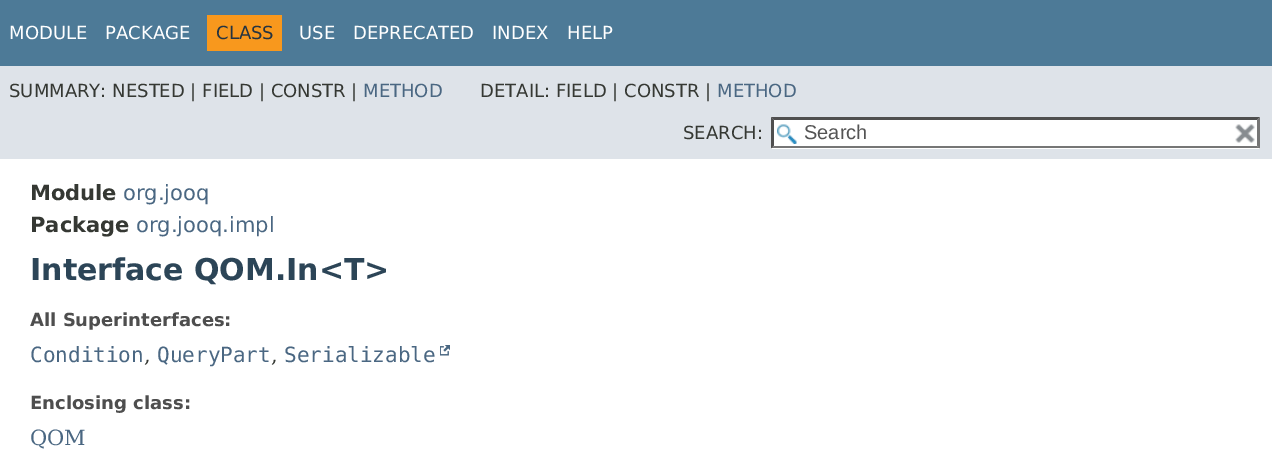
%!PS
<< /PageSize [1272 463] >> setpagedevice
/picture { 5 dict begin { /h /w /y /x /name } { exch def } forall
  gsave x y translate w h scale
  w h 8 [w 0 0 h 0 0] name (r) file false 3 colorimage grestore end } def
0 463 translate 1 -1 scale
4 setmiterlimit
1 setgray
0 0 1272 463 rectfill
0.302 0.478 0.592 setrgbcolor
0 0 1272 66 rectfill
/DejaVuSans-Regular [18 0 0 -18 0 0] selectfont
1 setgray
9 39 moveto (MODULE) show
105 39 moveto (PACKAGE) show
0.973 0.596 0.114 setrgbcolor
207 15 75 36 rectfill
0.145 0.204 0.255 setrgbcolor
216 39 moveto (CLASS) show
1 setgray
299 39 moveto (USE) show
353 39 moveto (DEPRECATED) show
492 39 moveto (INDEX) show
567 39 moveto (HELP) show
0.871 0.89 0.914 setrgbcolor
0 66 1272 93 rectfill
0.208 0.22 0.2 setrgbcolor
9 97 moveto (SUMMARY: NESTED | FIELD | CONSTR |) show
0.29 0.404 0.51 setrgbcolor
363 97 moveto (METHOD) show
0.208 0.22 0.2 setrgbcolor
480 97 moveto (DETAIL: FIELD | CONSTR |) show
0.29 0.404 0.51 setrgbcolor
717 97 moveto (METHOD) show
0.208 0.22 0.2 setrgbcolor
683 139 moveto (SEARCH:) show
1 setgray
771 117 489 32 rectfill
(img1.rgb) 777 124 20 20 picture
0.31 setgray
newpath 771 117 moveto 1260 117 lineto 1257 120 lineto 774 120 lineto closepath fill
0.463 setgray
newpath 1260 117 moveto 1260 148.5 lineto 1257 145.5 lineto 1257 120 lineto closepath fill
newpath 1260 148 moveto 771 148 lineto 774 146 lineto 1257 146 lineto closepath fill
0.31 setgray
newpath 771 148.5 moveto 771 117 lineto 774 120 lineto 774 145.5 lineto closepath fill
/LiberationSans-Regular [20 0 0 -20 0 0] selectfont
0.329 setgray
804 139 moveto (Search) show
(img2.rgb) 1235 124 20 19 picture
/DejaVuSans-Bold [21 0 0 -21 0 0] selectfont
0.208 0.22 0.2 setrgbcolor
30 200 moveto (Module) show
/DejaVuSans-Regular [21 0 0 -21 0 0] selectfont
0.29 0.404 0.51 setrgbcolor
123 200 moveto (org.jooq) show
/DejaVuSans-Bold [21 0 0 -21 0 0] selectfont
0.208 0.22 0.2 setrgbcolor
30 232 moveto (Package) show
/DejaVuSans-Regular [21 0 0 -21 0 0] selectfont
0.29 0.404 0.51 setrgbcolor
136 232 moveto (org.jooq.impl) show
/DejaVuSans-Bold [30 0 0 -30 0 0] selectfont
0.173 0.271 0.341 setrgbcolor
30 280 moveto (Interface QOM.In<T>) show
/DejaVuSans-Bold [18 0 0 -18 0 0] selectfont
0.306 setgray
30 326 moveto (All Superinterfaces:) show
/DejaVuSansMono-Regular [21 0 0 -21 0 0] selectfont
0.29 0.404 0.51 setrgbcolor
30 362 moveto (Condition) show
/DejaVuSerif-Regular [21 0 0 -21 0 0] selectfont
0.208 0.22 0.2 setrgbcolor
144 362 moveto (,) show
/DejaVuSansMono-Regular [21 0 0 -21 0 0] selectfont
0.29 0.404 0.51 setrgbcolor
157 362 moveto (QueryPart) show
/DejaVuSerif-Regular [21 0 0 -21 0 0] selectfont
0.208 0.22 0.2 setrgbcolor
271 362 moveto (,) show
/DejaVuSansMono-Regular [21 0 0 -21 0 0] selectfont
0.29 0.404 0.51 setrgbcolor
284 362 moveto (Serializable) show
(img3.rgb) 440 345 10 11 picture
/DejaVuSans-Bold [18 0 0 -18 0 0] selectfont
0.306 setgray
30 409 moveto (Enclosing class:) show
/DejaVuSerif-Regular [21 0 0 -21 0 0] selectfont
0.29 0.404 0.51 setrgbcolor
30 445 moveto (QOM) show
showpage
